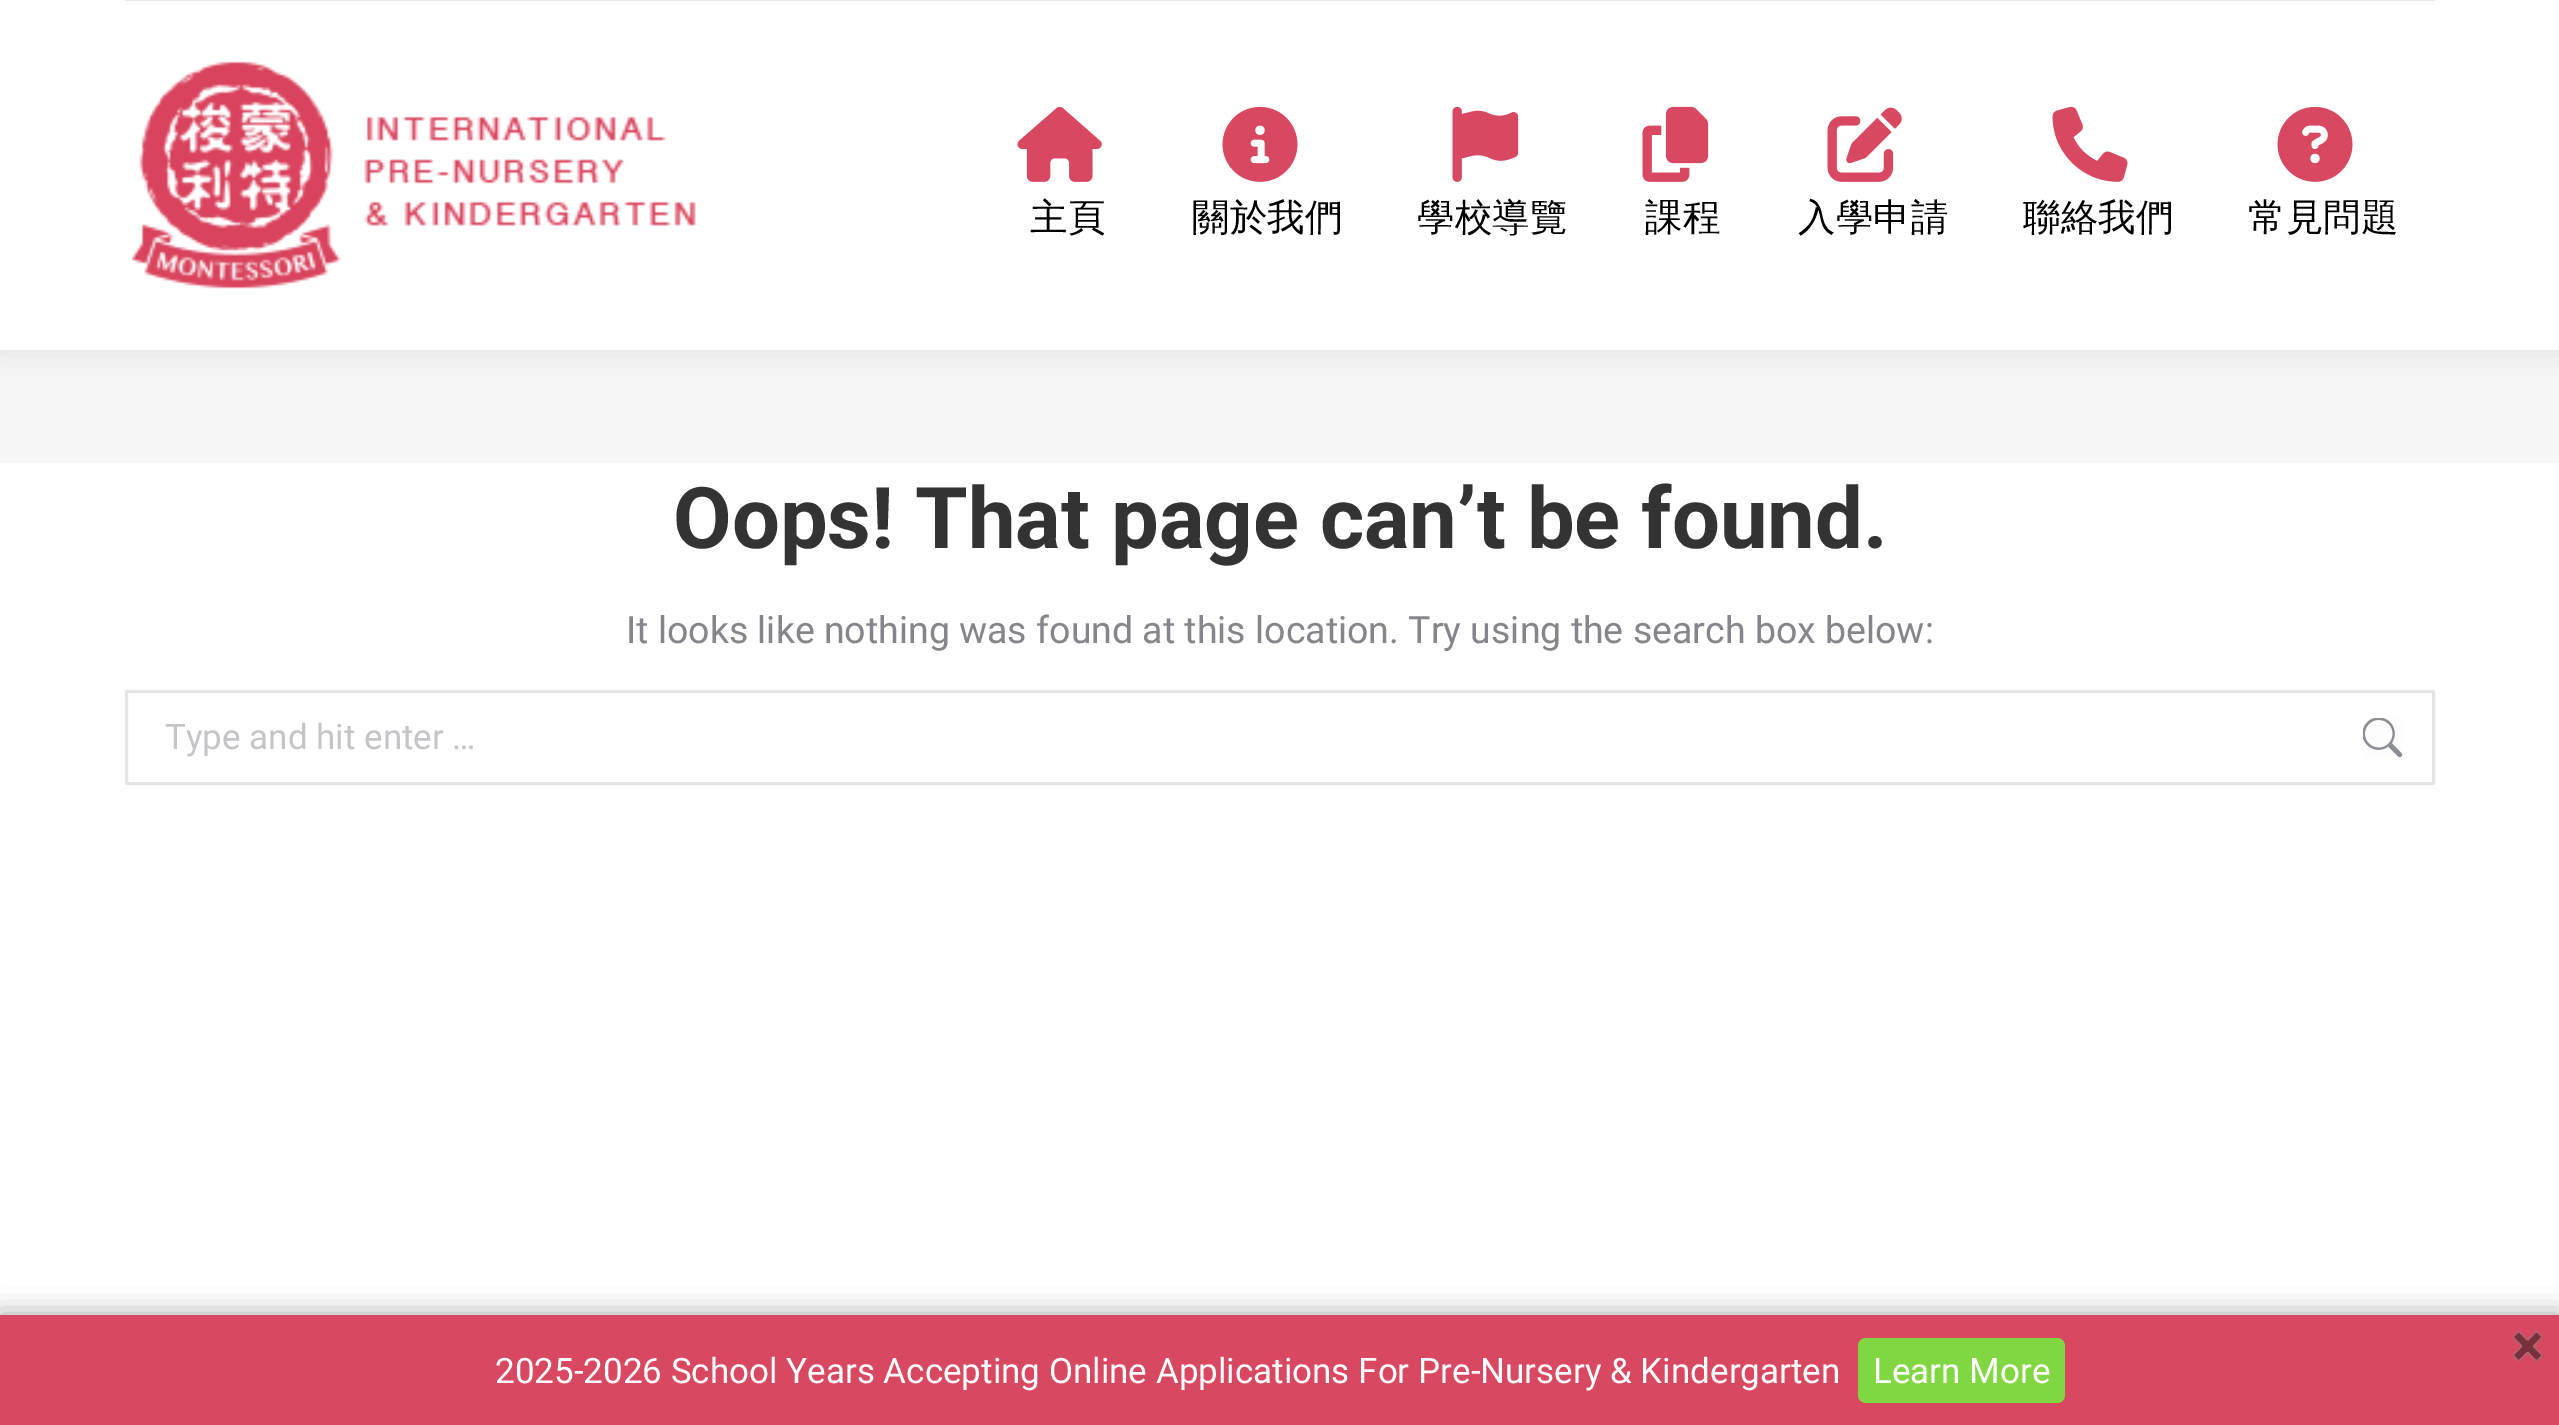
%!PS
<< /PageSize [2559 1425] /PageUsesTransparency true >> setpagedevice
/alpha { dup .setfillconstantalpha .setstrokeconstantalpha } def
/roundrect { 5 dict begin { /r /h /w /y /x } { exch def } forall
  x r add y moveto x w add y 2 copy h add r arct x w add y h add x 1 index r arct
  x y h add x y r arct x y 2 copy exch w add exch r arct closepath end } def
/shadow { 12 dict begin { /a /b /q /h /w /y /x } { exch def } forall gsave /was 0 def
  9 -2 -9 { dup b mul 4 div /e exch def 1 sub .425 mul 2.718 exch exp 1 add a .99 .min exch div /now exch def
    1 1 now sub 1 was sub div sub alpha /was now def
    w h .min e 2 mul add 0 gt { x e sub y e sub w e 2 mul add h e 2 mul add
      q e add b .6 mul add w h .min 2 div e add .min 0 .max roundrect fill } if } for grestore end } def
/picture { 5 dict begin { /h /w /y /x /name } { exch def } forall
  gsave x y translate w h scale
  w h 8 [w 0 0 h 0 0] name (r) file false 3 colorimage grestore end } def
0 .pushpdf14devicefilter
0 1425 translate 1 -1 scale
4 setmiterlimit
1 setgray
0 0 2559 1425 rectfill
0.969 setgray
0 350 2559 113 rectfill
0 setgray
-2 -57 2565 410 0 19 0.07 shadow
1 setgray
0 0 2559 350 rectfill
0.906 setgray
125 0 2310 1 rectfill
(img1.rgb) 131 61 565 228 picture
(img2.rgb) 1017 106 85 76 picture
/WenQuanYiZenHei-Medium [37.5 0 0 -37.5 0 0] selectfont
0 setgray
1030 230 moveto (主頁) show
(img3.rgb) 1222 106 76 76 picture
1192 230 moveto (關於我們) show
(img4.rgb) 1452 106 67 76 picture
1417 230 moveto (學校導覽) show
(img5.rgb) 1642 106 67 76 picture
1645 230 moveto (課程) show
(img6.rgb) 1827 107 75 75 picture
1798 230 moveto (入學申請) show
(img7.rgb) 2052 106 76 76 picture
2023 230 moveto (聯絡我們) show
(img8.rgb) 2277 106 76 76 picture
2248 230 moveto (常見問題) show
/Roboto-Bold [85 0 0 -85 0 0] selectfont
0.2 setgray
673 548 moveto (Oops! That page can’t be found.) show
/Roboto-Regular [37.5 0 0 -37.5 0 0] selectfont
0.522 0.525 0.549 setrgbcolor
626 643 moveto (It looks like nothing was found at this location. Try using the search box below:) show
0.898 setgray
3 setlinewidth
126.5 691.5 2307 92 1 roundrect stroke
/Roboto-Regular [35 0 0 -35 0 0] selectfont
0.769 0.773 0.788 setrgbcolor
165 749 moveto (Type and hit enter …) show
(img9.rgb) 2363 718 40 40 picture
0 setgray
0 1315 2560 110 0 12.5 0.35 shadow
0.847 0.286 0.38 setrgbcolor
0 1315 2559 110 rectfill
(img10.rgb) 2513 1331 30 31 picture
1 setgray
495 1383 moveto (2025-2026 School Years Accepting Online Applications For Pre-Nursery & Kindergarten) show
0.506 0.843 0.259 setrgbcolor
1858 1338 207 65 8 roundrect fill
1 setgray
1873 1383 moveto (Learn More) show
.poppdf14devicefilter showpage
